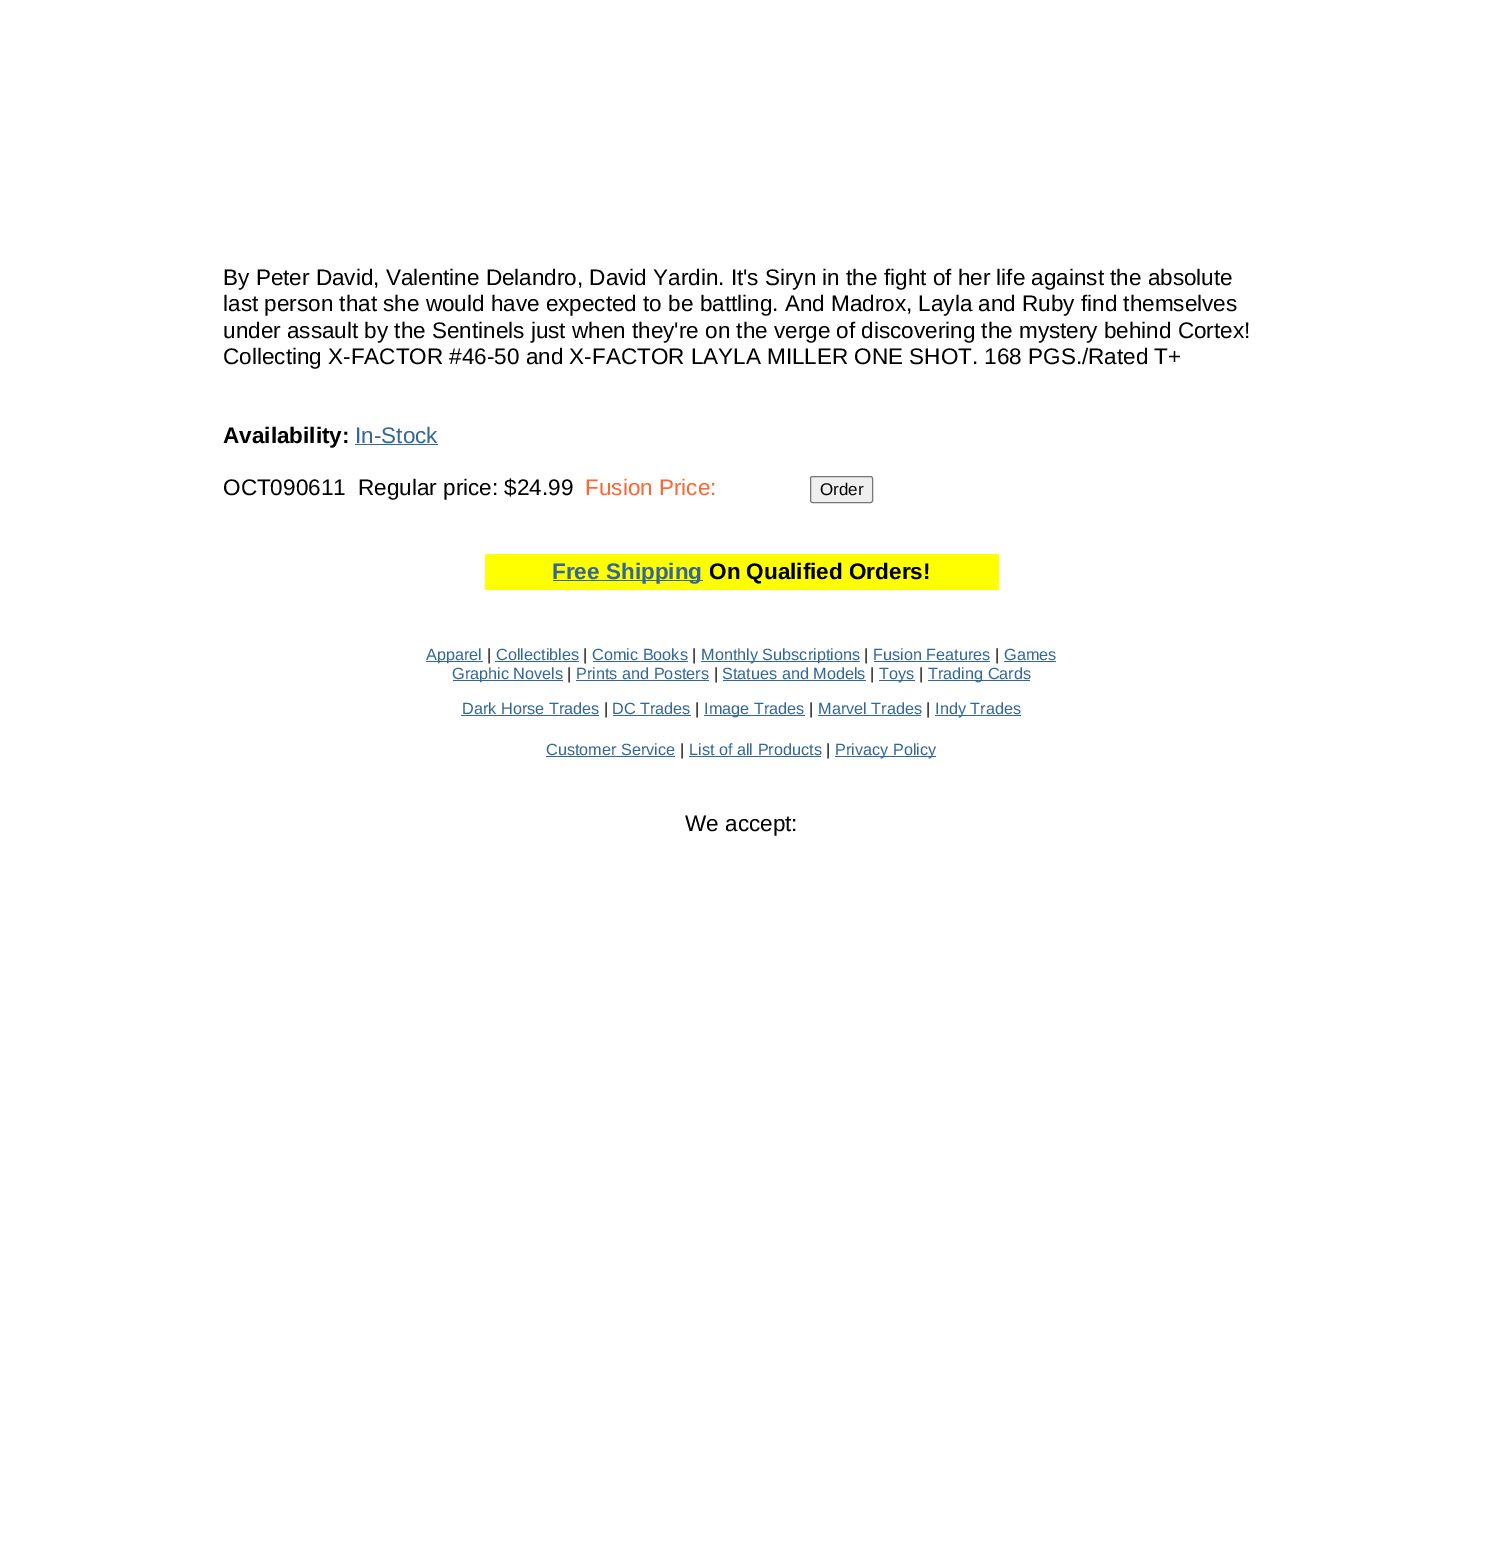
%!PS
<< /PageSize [1504 1559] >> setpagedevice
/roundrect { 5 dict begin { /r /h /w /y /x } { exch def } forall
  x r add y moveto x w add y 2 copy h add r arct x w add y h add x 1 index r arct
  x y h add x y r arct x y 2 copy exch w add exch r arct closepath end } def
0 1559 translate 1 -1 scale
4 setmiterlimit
1 setgray
0 0 1504 1559 rectfill
/LiberationSans-Regular [22.5 0 0 -22.5 0 0] selectfont
0 setgray
223 285 moveto (By Peter David, Valentine Delandro, David Yardin. It's Siryn in the fight of her life against the absolute) show
223 311 moveto (last person that she would have expected to be battling. And Madrox, Layla and Ruby find themselves) show
223 338 moveto (under assault by the Sentinels just when they're on the verge of discovering the mystery behind Cortex!) show
223 364 moveto (Collecting X-FACTOR #46-50 and X-FACTOR LAYLA MILLER ONE SHOT. 168 PGS./Rated T+) show
/LiberationSans-Bold [22.5 0 0 -22.5 0 0] selectfont
223 443 moveto (Availability:) show
/LiberationSans-Regular [22.5 0 0 -22.5 0 0] selectfont
0.2 0.4 0.6 setrgbcolor
355 443 moveto (In-Stock) show
355 444 83 1 rectfill
0 setgray
223 495 moveto (OCT090611) show
358 495 moveto (Regular price: $24.99) show
1 0.4 0.2 setrgbcolor
585 495 moveto (Fusion Price:) show
0.937 setgray
810.5 476.5 62 26 2 roundrect gsave fill grestore
0.463 setgray
stroke
/LiberationSans-Regular [17 0 0 -17 0 0] selectfont
0 setgray
820 495 moveto (Order) show
1 1 0 setrgbcolor
485 554 514 36 rectfill
0.2 0.4 0.6 setrgbcolor
553 580 150 1 rectfill
/LiberationSans-Bold [22.5 0 0 -22.5 0 0] selectfont
552 579 moveto (Free Shipping) show
0 setgray
709 579 moveto (On Qualified Orders!) show
0.2 0.4 0.6 setrgbcolor
426 661 57 1 rectfill
/LiberationSans-Regular [16.25 0 0 -16.25 0 0] selectfont
426 660 moveto (Apparel) show
0 setgray
487 660 moveto (|) show
0.2 0.4 0.6 setrgbcolor
496 660 moveto (Collectibles) show
495 661 84 1 rectfill
0 setgray
583 660 moveto (|) show
0.2 0.4 0.6 setrgbcolor
592 660 moveto (Comic Books) show
593 661 95 1 rectfill
0 setgray
692 660 moveto (|) show
0.2 0.4 0.6 setrgbcolor
701 661 159 1 rectfill
701 660 moveto (Monthly Subscriptions) show
0 setgray
864 660 moveto (|) show
0.2 0.4 0.6 setrgbcolor
873 660 moveto (Fusion Features) show
874 661 116 1 rectfill
0 setgray
995 660 moveto (|) show
0.2 0.4 0.6 setrgbcolor
1004 660 moveto (Games) show
1004 661 52 1 rectfill
453 680 110 1 rectfill
452 679 moveto (Graphic Novels) show
0 setgray
567 679 moveto (|) show
0.2 0.4 0.6 setrgbcolor
576 679 moveto (Prints and Posters) show
576 680 133 1 rectfill
0 setgray
714 679 moveto (|) show
0.2 0.4 0.6 setrgbcolor
722 679 moveto (Statues and Models) show
723 680 143 1 rectfill
0 setgray
870 679 moveto (|) show
0.2 0.4 0.6 setrgbcolor
879 680 36 1 rectfill
879 679 moveto (Toys) show
0 setgray
919 679 moveto (|) show
0.2 0.4 0.6 setrgbcolor
928 680 102 1 rectfill
928 679 moveto (Trading Cards) show
462 714 moveto (Dark Horse Trades) show
461 715 138 1 rectfill
0 setgray
604 714 moveto (|) show
0.2 0.4 0.6 setrgbcolor
612 714 moveto (DC Trades) show
613 715 78 1 rectfill
0 setgray
695 714 moveto (|) show
0.2 0.4 0.6 setrgbcolor
704 715 101 1 rectfill
704 714 moveto (Image Trades) show
0 setgray
809 714 moveto (|) show
0.2 0.4 0.6 setrgbcolor
818 714 moveto (Marvel Trades) show
818 715 103 1 rectfill
0 setgray
926 714 moveto (|) show
0.2 0.4 0.6 setrgbcolor
935 715 86 1 rectfill
935 714 moveto (Indy Trades) show
546 755 moveto (Customer Service) show
546 756 129 1 rectfill
0 setgray
680 755 moveto (|) show
0.2 0.4 0.6 setrgbcolor
689 755 moveto (List of all Products) show
689 756 132 1 rectfill
0 setgray
826 755 moveto (|) show
0.2 0.4 0.6 setrgbcolor
835 756 101 1 rectfill
835 755 moveto (Privacy Policy) show
/LiberationSans-Regular [22.5 0 0 -22.5 0 0] selectfont
0 setgray
685 831 moveto (We accept:) show
showpage
